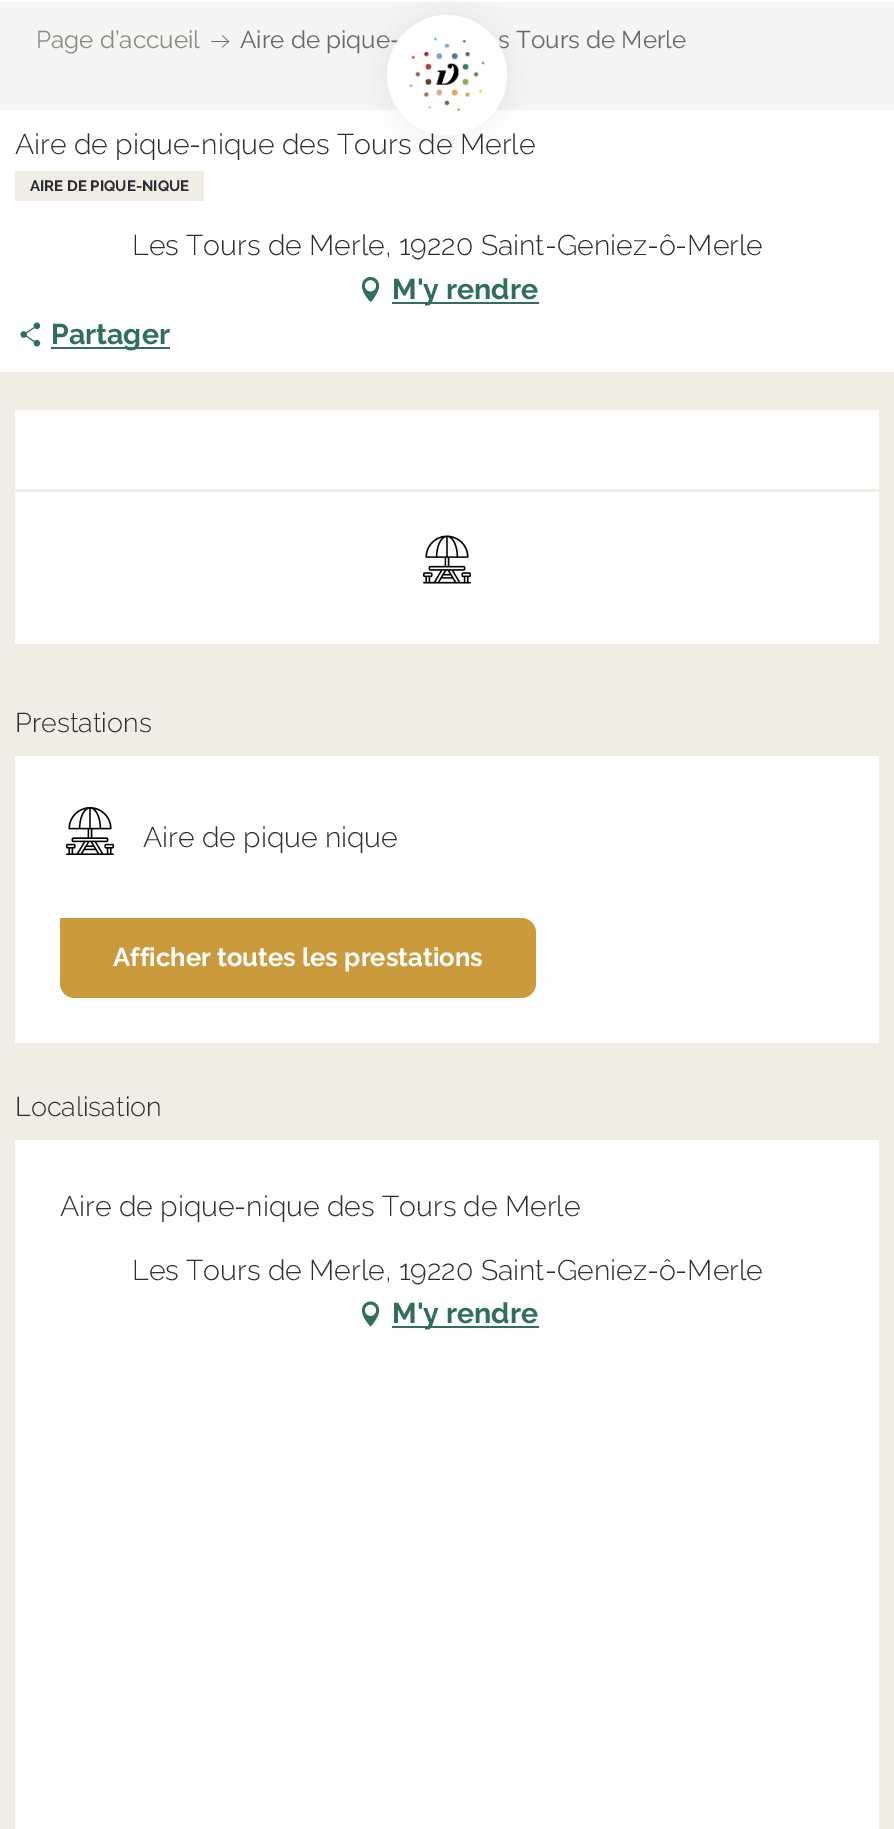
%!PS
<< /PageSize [894 1829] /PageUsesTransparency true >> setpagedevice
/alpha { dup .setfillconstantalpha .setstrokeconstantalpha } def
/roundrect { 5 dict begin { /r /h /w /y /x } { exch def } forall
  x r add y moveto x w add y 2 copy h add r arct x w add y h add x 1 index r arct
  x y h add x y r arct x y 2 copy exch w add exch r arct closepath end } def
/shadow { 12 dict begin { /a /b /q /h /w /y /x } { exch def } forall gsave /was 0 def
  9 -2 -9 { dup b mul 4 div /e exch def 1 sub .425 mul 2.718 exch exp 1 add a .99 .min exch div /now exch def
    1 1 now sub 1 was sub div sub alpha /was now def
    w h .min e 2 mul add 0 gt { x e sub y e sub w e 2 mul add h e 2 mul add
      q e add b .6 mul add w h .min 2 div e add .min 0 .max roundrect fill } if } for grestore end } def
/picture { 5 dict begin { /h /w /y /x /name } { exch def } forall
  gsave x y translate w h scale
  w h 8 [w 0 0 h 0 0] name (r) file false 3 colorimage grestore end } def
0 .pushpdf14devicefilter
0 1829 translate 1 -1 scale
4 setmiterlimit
1 setgray
0 0 894 1829 rectfill
0.961 setgray
0 2 894 108 rectfill
0.169 0.176 0.2 setrgbcolor
387 15 120 120 60 12 0.08 shadow
/Raleway-Regular [24.25 0 0 -24.25 0 0] selectfont
0.408 0.412 0.427 setrgbcolor
240 48 moveto (Aire de pique-) show
498 48 moveto (s Tours de Merle) show
/Raleway-Light [28.5 0 0 -28.5 0 0] selectfont
0.169 0.176 0.2 setrgbcolor
15 154 moveto (Aire de pique-nique des Tours de Merle) show
0.996 setgray
newpath 447 75 60 0 360 arc closepath fill
(img1.rgb) 409 37 76 74 picture
/Raleway-Regular [24.25 0 0 -24.25 0 0] selectfont
0.541 0.549 0.502 setrgbcolor
36 48 moveto (Page d’accueil) show
(img2.rgb) 211 35 19 13 picture
0.941 0.929 0.894 setrgbcolor
15 171 189 30 rectfill
/Raleway-Bold [15 0 0 -15 0 0] selectfont
0.169 0.176 0.2 setrgbcolor
30 191 moveto (AIRE DE PIQUE-NIQUE) show
/Raleway-Light [28.5 0 0 -28.5 0 0] selectfont
132 255 moveto (Les Tours de Merle, 19220 Saint-Geniez-ô-Merle) show
(img3.rgb) 361 277 19 25 picture
0.184 0.439 0.337 setrgbcolor
392 302 147 2 rectfill
/Raleway-Bold [28.5 0 0 -28.5 0 0] selectfont
392 299 moveto (M'y rendre) show
(img4.rgb) 20 322 21 25 picture
51 347 119 2 rectfill
51 344 moveto (Partager) show
0.941 0.929 0.894 setrgbcolor
0 372 894 1457 rectfill
0.996 setgray
15 410 864 234 rectfill
0.941 0.929 0.894 setrgbcolor
15 489 864 3 rectfill
(img5.rgb) 423 535 48 49 picture
/Raleway-Light [27 0 0 -27 0 0] selectfont
0.169 0.176 0.2 setrgbcolor
15 732 moveto (Prestations) show
0.996 setgray
15 756 864 287 rectfill
(img6.rgb) 66 807 48 48 picture
/Raleway-Light [28.5 0 0 -28.5 0 0] selectfont
0.169 0.176 0.2 setrgbcolor
143 847 moveto (Aire de pique nique) show
0.796 0.604 0.235 setrgbcolor
newpath 60 918 moveto 521 918 lineto 529.5 918 536 924.5 536 933 curveto 536 983 lineto 536 991.5 529.5 998 521 998 curveto 75 998 lineto 66.5 998 60 991.5 60 983 curveto closepath fill
/Raleway-Bold [25.6 0 0 -25.6 0 0] selectfont
0.996 setgray
113 966 moveto (Afficher toutes les prestations) show
/Raleway-Light [27 0 0 -27 0 0] selectfont
0.169 0.176 0.2 setrgbcolor
15 1116 moveto (Localisation) show
0.996 setgray
15 1140 864 689 rectfill
/Raleway-Light [28.5 0 0 -28.5 0 0] selectfont
0.169 0.176 0.2 setrgbcolor
60 1216 moveto (Aire de pique-nique des Tours de Merle) show
132 1280 moveto (Les Tours de Merle, 19220 Saint-Geniez-ô-Merle) show
(img7.rgb) 361 1301 19 26 picture
0.184 0.439 0.337 setrgbcolor
392 1326 147 2 rectfill
/Raleway-Bold [28.5 0 0 -28.5 0 0] selectfont
392 1323 moveto (M'y rendre) show
.poppdf14devicefilter showpage
